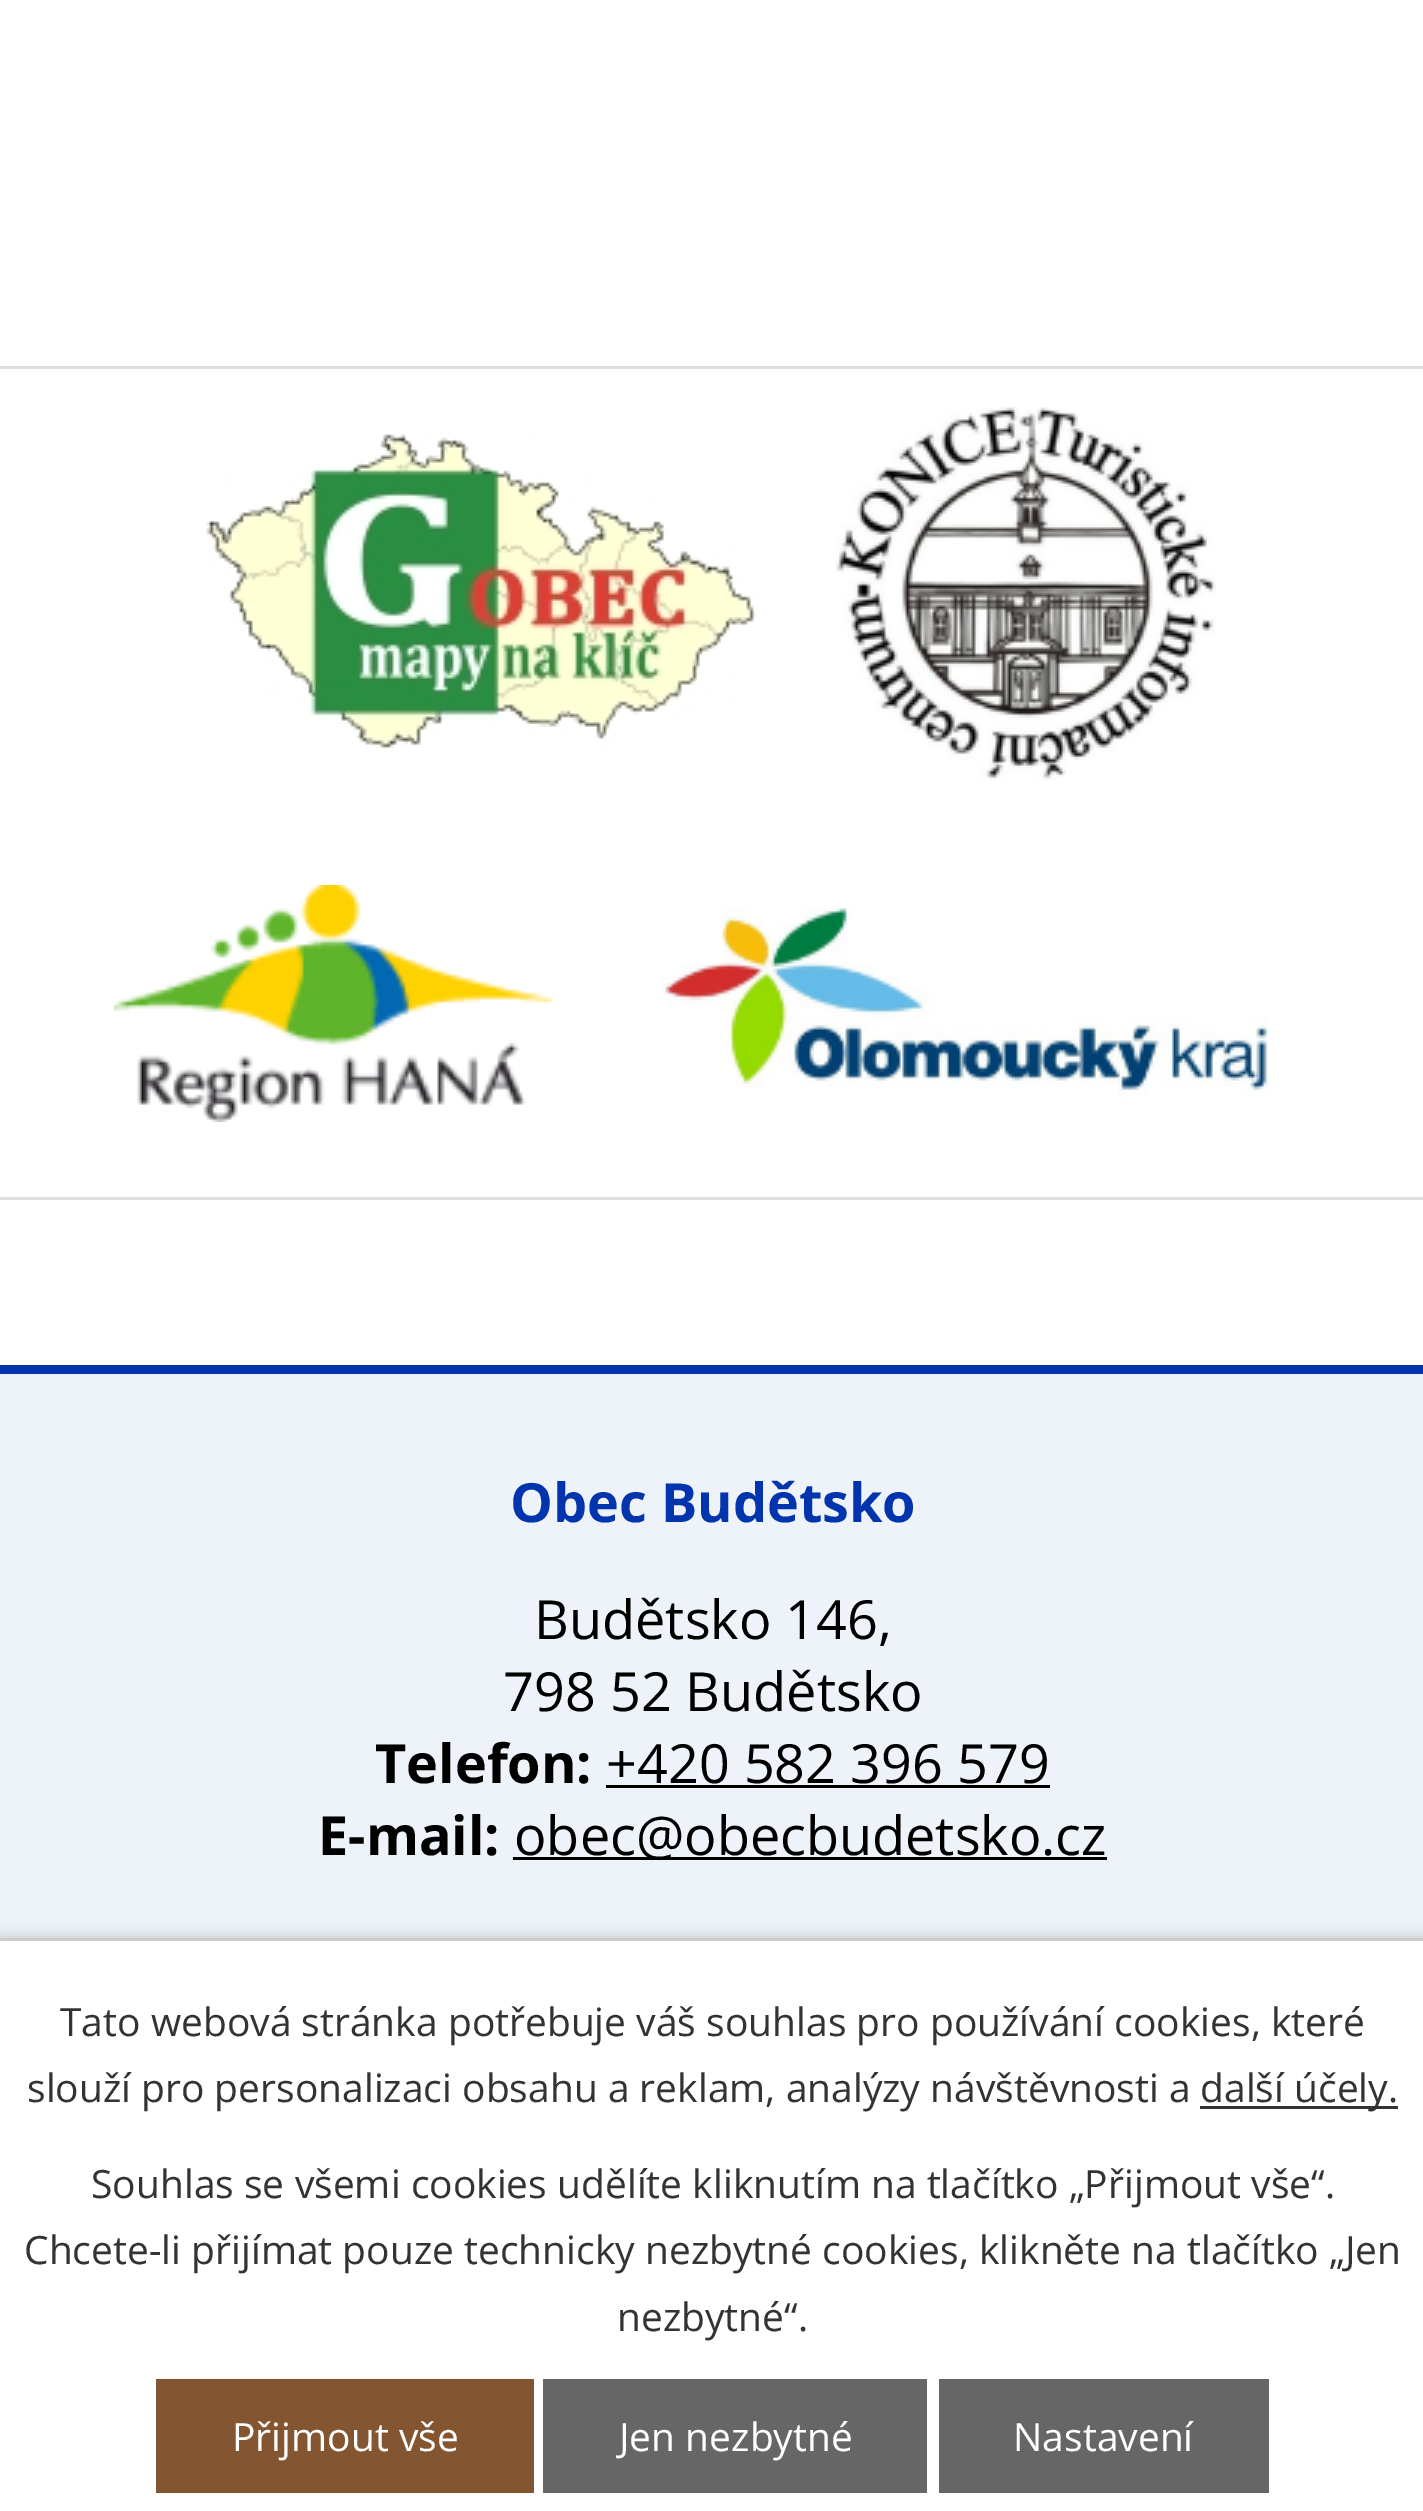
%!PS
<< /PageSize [1423 2511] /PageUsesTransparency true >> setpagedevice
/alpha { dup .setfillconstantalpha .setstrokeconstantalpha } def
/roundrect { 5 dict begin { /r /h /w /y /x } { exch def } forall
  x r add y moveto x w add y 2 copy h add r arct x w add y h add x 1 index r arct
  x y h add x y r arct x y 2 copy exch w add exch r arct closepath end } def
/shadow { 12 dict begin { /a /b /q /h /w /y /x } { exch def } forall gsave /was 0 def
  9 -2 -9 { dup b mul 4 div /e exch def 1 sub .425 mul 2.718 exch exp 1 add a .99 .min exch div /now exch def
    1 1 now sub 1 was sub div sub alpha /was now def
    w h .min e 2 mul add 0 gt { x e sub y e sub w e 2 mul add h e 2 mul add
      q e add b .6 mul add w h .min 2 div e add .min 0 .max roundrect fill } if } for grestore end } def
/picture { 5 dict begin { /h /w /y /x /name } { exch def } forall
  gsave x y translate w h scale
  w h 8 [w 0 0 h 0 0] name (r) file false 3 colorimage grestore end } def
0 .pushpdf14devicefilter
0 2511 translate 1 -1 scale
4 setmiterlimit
1 setgray
0 0 1423 2511 rectfill
0.871 setgray
0 366 1423 3 rectfill
0 1197 1423 3 rectfill
(img1.rgb) 206 434 551 316 picture
(img2.rgb) 836 407 380 373 picture
(img3.rgb) 114 885 441 237 picture
(img4.rgb) 662 908 607 190 picture
0.933 0.953 0.976 setrgbcolor
0 1374 1423 564 rectfill
0.008 0.204 0.682 setrgbcolor
0 1365 1423 9 rectfill
/OpenSans-Bold [54 0 0 -54 0 0] selectfont
510 1522 moveto (Obec Budětsko) show
/OpenSans-Regular [54 0 0 -54 0 0] selectfont
0 setgray
534 1639 moveto (Budětsko 146,) show
503 1711 moveto (798 52 Budětsko) show
/OpenSans-Bold [54 0 0 -54 0 0] selectfont
375 1783 moveto (Telefon:) show
/OpenSans-Regular [54 0 0 -54 0 0] selectfont
606 1783 moveto (+420 582 396 579) show
606 1785 444 3 rectfill
/OpenSans-Bold [54 0 0 -54 0 0] selectfont
318 1855 moveto (E-mail:) show
513 1857 594 3 rectfill
/OpenSans-Regular [54 0 0 -54 0 0] selectfont
514 1855 moveto (obec@obecbudetsko.cz) show
0 1938 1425 573 0 7.5 0.2 shadow
1 setgray
0 1941 1423 570 rectfill
0.8 setgray
0 1938 1423 3 rectfill
/OpenSans-Regular [39 0 0 -39 0 0] selectfont
0.2 setgray
60 2036 moveto (Tato webová stránka potřebuje váš souhlas pro používání cookies, které) show
27 2102 moveto (slouží pro personalizaci obsahu a reklam, analýzy návštěvnosti a) show
1200 2106 198 3 rectfill
1200 2102 moveto (další účely.) show
91 2198 moveto (Souhlas se všemi cookies udělíte kliknutím na tlačítko „Přijmout vše“.) show
24 2264 moveto (Chcete-li přijímat pouze technicky nezbytné cookies, klikněte na tlačítko „Jen) show
617 2331 moveto (nezbytné“.) show
0.514 0.333 0.192 setrgbcolor
156 2379 378 114 rectfill
1 setgray
232 2451 moveto (Přijmout vše) show
0.4 setgray
543 2379 384 114 rectfill
1 setgray
619 2451 moveto (Jen nezbytné) show
0.4 setgray
939 2379 330 114 rectfill
1 setgray
1013 2451 moveto (Nastavení) show
.poppdf14devicefilter showpage
